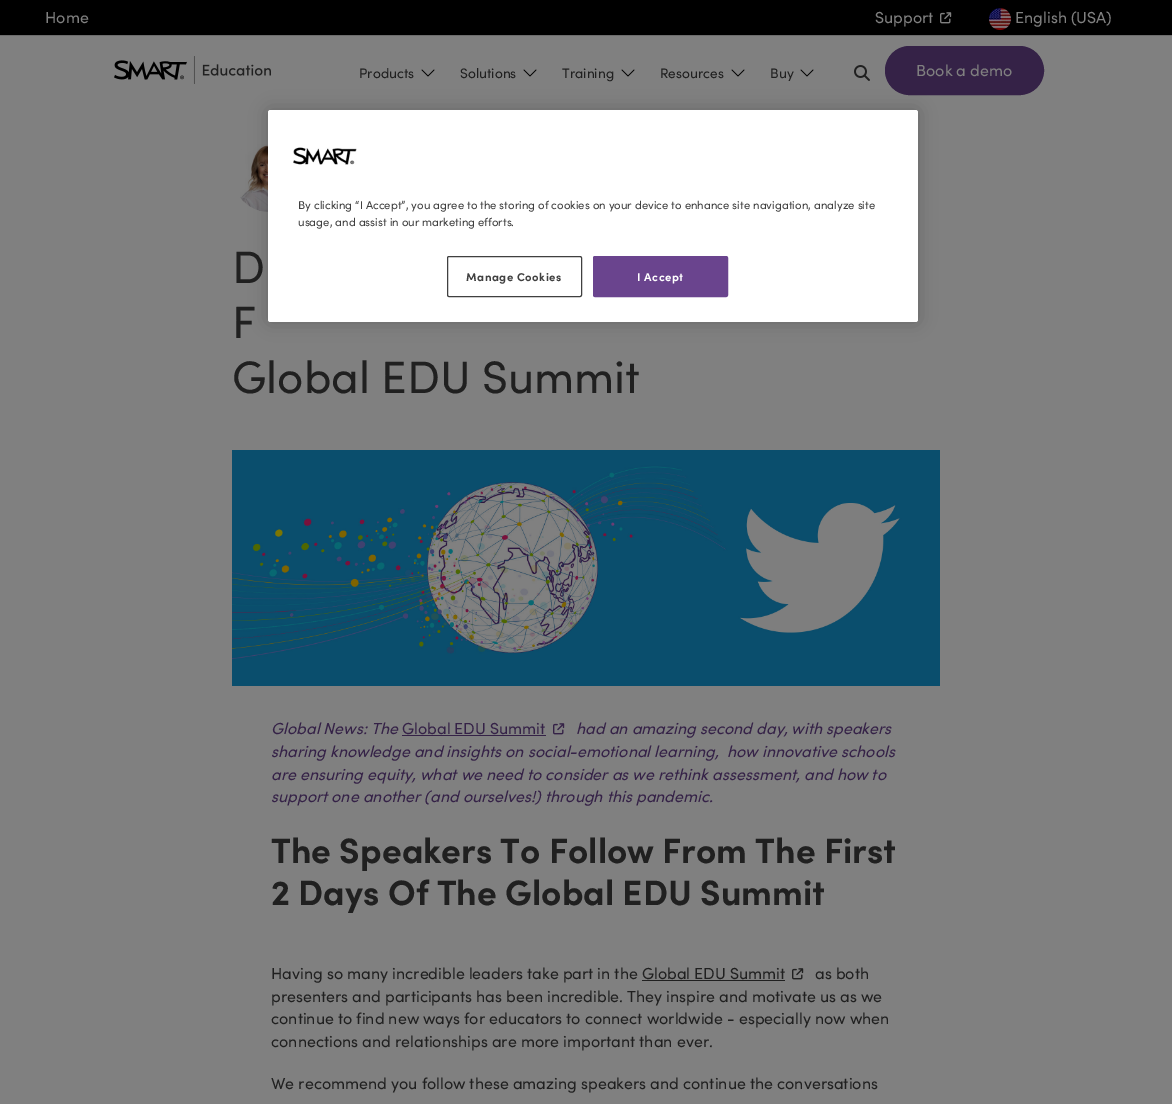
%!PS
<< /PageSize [1172 1104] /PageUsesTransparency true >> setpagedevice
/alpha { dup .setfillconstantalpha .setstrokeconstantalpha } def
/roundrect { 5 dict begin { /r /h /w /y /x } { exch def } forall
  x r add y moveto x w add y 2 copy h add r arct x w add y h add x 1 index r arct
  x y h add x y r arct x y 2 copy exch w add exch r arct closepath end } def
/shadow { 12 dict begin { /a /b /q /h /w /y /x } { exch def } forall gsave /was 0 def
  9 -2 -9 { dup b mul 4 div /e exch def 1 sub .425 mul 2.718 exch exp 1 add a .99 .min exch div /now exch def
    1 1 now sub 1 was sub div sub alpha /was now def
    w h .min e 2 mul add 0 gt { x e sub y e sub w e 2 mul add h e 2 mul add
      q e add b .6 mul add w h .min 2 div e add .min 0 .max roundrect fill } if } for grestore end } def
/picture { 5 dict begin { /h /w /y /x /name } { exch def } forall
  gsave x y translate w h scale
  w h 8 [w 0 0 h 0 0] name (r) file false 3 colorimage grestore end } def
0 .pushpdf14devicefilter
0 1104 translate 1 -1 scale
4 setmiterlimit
0.502 setgray
0 0 1172 1104 rectfill
0.424 setgray
0 35 1172 1 rectfill
0 setgray
0 0 1172 35 rectfill
/Sofia-Regular [16 0 0 -16 0 0] selectfont
0.502 setgray
45 23 moveto (Home) show
875 23 moveto (Support) show
(img1.rgb) 940 12 12 12 picture
(img2.rgb) 989 8 22 22 picture
1015 23 moveto (English \(USA\)) show
(img3.rgb) 114 56 157 28 picture
/Sofia-Regular [13.75 0 0 -13.75 0 0] selectfont
0.125 setgray
359 78 moveto (Products) show
(img4.rgb) 421 69 14 8 picture
460 78 moveto (Solutions) show
(img4.rgb) 523 69 14 8 picture
562 78 moveto (Training) show
(img4.rgb) 621 69 14 8 picture
660 78 moveto (Resources) show
(img4.rgb) 731 69 14 8 picture
770 78 moveto (Buy) show
(img4.rgb) 800 69 14 8 picture
(img5.rgb) 854 65 16 16 picture
0.208 0.133 0.278 setrgbcolor
885.5 46.5 158 48 24 roundrect gsave fill grestore
stroke
/Sofia-Regular [16 0 0 -16 0 0] selectfont
0.502 setgray
916 76 moveto (Book a demo) show
(img6.rgb) 240 144 28 68 picture
/Sofia-Regular [45.5 0 0 -45.5 0 0] selectfont
0.125 setgray
232 283 moveto (D) show
232 338 moveto (F) show
232 393 moveto (Global EDU Summit) show
(img7.rgb) 232 450 708 236 picture
/Sofia-Italic [16 0 0 -16 0 0] selectfont
0.208 0.133 0.278 setrgbcolor
271 734 moveto (Global News: The) show
/Sofia-Regular [16 0 0 -16 0 0] selectfont
402 734 moveto (Global EDU Summit) show
402 735 144 1 rectfill
(img8.rgb) 553 723 12 12 picture
/Sofia-Italic [16 0 0 -16 0 0] selectfont
576 734 moveto (had an amazing second day, with speakers) show
271 757 moveto (sharing knowledge and insights on social-emotional learning,  how innovative schools) show
271 780 moveto (are ensuring equity, what we need to consider as we rethink assessment, and how to) show
271 802 moveto (support one another \(and ourselves!\) through this pandemic.) show
/Sofia-Bold [35.25 0 0 -35.25 0 0] selectfont
0.125 setgray
271 863 moveto (The Speakers To Follow From The First) show
271 905 moveto (2 Days Of The Global EDU Summit) show
/Sofia-Regular [16 0 0 -16 0 0] selectfont
271 979 moveto (Having so many incredible leaders take part in the Global EDU Summit) show
815 979 moveto (as both) show
(img9.rgb) 792 968 12 12 picture
642 980 143 1 rectfill
271 1002 moveto (presenters and participants has been incredible. They inspire and motivate us as we) show
271 1024 moveto (continue to find new ways for educators to connect worldwide - especially now when) show
271 1047 moveto (connections and relationships are more important than ever.) show
271 1089 moveto (We recommend you follow these amazing speakers and continue the conversations) show
0 setgray
268 110 650 212 2.5 9 0.2 shadow
1 setgray
268 110 650 212 2.5 roundrect fill
(img10.rgb) 293 147 64 18 picture
/Sofia-Regular [11.38 0 0 -11.38 0 0] selectfont
0.251 setgray
298 209 moveto (By clicking “I Accept”, you agree to the storing of cookies on your device to enhance site navigation, analyze site) show
298 226 moveto (usage, and assist in our marketing efforts.) show
447.5 256.5 134 40 1.5 roundrect stroke
/Sofia-Bold [11.38 0 0 -11.38 0 0] selectfont
466 281 moveto 0.5 0 (Manage Cookies) ashow
0.416 0.267 0.557 setrgbcolor
593.5 256.5 134 40 1.5 roundrect gsave fill grestore
stroke
1 setgray
637 281 moveto 0.5 0 (I Accept) ashow
.poppdf14devicefilter showpage
